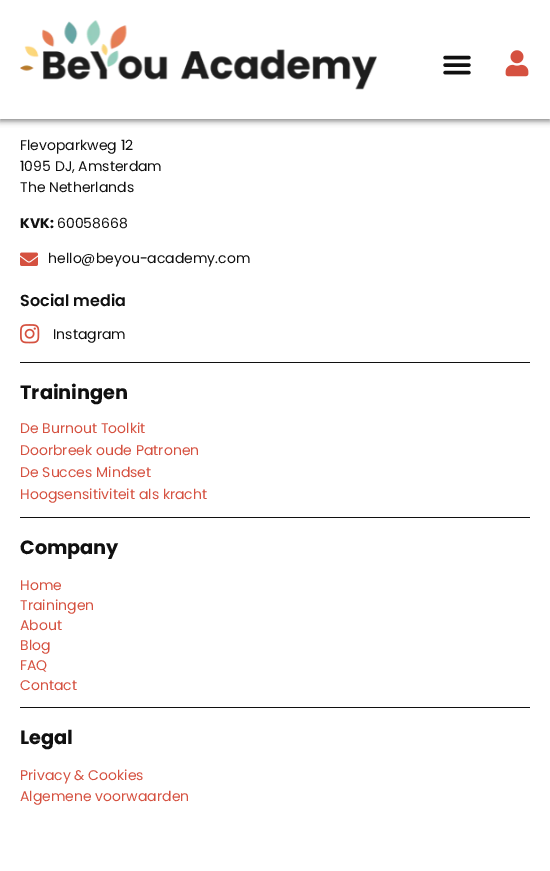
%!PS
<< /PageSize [550 871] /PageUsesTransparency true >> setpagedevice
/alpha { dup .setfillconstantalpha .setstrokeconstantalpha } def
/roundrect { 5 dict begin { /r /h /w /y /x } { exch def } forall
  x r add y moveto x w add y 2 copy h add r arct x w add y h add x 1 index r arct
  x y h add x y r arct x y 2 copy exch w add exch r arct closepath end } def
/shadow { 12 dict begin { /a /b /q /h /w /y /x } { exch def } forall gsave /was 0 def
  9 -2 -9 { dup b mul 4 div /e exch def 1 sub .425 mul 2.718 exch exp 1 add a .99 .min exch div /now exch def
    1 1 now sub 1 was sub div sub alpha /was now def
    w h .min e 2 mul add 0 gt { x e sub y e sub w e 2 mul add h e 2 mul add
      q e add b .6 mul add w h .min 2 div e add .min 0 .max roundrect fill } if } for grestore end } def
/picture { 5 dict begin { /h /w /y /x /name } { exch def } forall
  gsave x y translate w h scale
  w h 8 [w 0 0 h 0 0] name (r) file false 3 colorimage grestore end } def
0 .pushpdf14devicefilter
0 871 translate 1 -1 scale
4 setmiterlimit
1 setgray
0 0 550 871 rectfill
0 setgray
0 2 550 119 0 3 0.5 shadow
1 setgray
0 0 550 119 rectfill
(img1.rgb) 20 20 357 70 picture
(img2.rgb) 443 55 28 20 picture
(img3.rgb) 505 50 24 27 picture
0.063 setgray
20 362 510 1 rectfill
/Poppins-Regular [14 0 0 -14 0 0] selectfont
20 150 moveto (Flevoparkweg 12) show
20 171 moveto (1095 DJ, Amsterdam) show
20 192 moveto (The Netherlands) show
/Poppins-Bold [14 0 0 -14 0 0] selectfont
20 228 moveto (KVK:) show
/Poppins-Regular [14 0 0 -14 0 0] selectfont
57 228 moveto (60058668) show
(img4.rgb) 20 252 18 14 picture
48 263 moveto (hello@beyou-academy.com) show
/Poppins-SemiBold [16 0 0 -16 0 0] selectfont
20 306 moveto (Social media) show
(img5.rgb) 20 324 20 20 picture
/Poppins-Regular [14 0 0 -14 0 0] selectfont
53 339 moveto (Instagram) show
20 517 510 1 rectfill
/Poppins-Bold [19.25 0 0 -19.25 0 0] selectfont
20 399 moveto (Trainingen) show
/Poppins-Regular [14 0 0 -14 0 0] selectfont
0.835 0.318 0.251 setrgbcolor
20 433 moveto (De Burnout Toolkit) show
20 455 moveto (Doorbreek oude Patronen) show
20 477 moveto (De Succes Mindset) show
20 499 moveto (Hoogsensitiviteit als kracht) show
0.063 setgray
20 707 510 1 rectfill
/Poppins-Bold [19.25 0 0 -19.25 0 0] selectfont
20 554 moveto (Company) show
/Poppins-Regular [14 0 0 -14 0 0] selectfont
0.835 0.318 0.251 setrgbcolor
20 590 moveto (Home) show
20 610 moveto (Trainingen) show
20 630 moveto (About) show
20 650 moveto (Blog) show
20 670 moveto (FAQ) show
20 690 moveto (Contact) show
/Poppins-Bold [19.25 0 0 -19.25 0 0] selectfont
0.063 setgray
20 744 moveto (Legal) show
/Poppins-Regular [14 0 0 -14 0 0] selectfont
0.835 0.318 0.251 setrgbcolor
20 780 moveto (Privacy & Cookies) show
20 801 moveto (Algemene voorwaarden) show
.poppdf14devicefilter showpage
